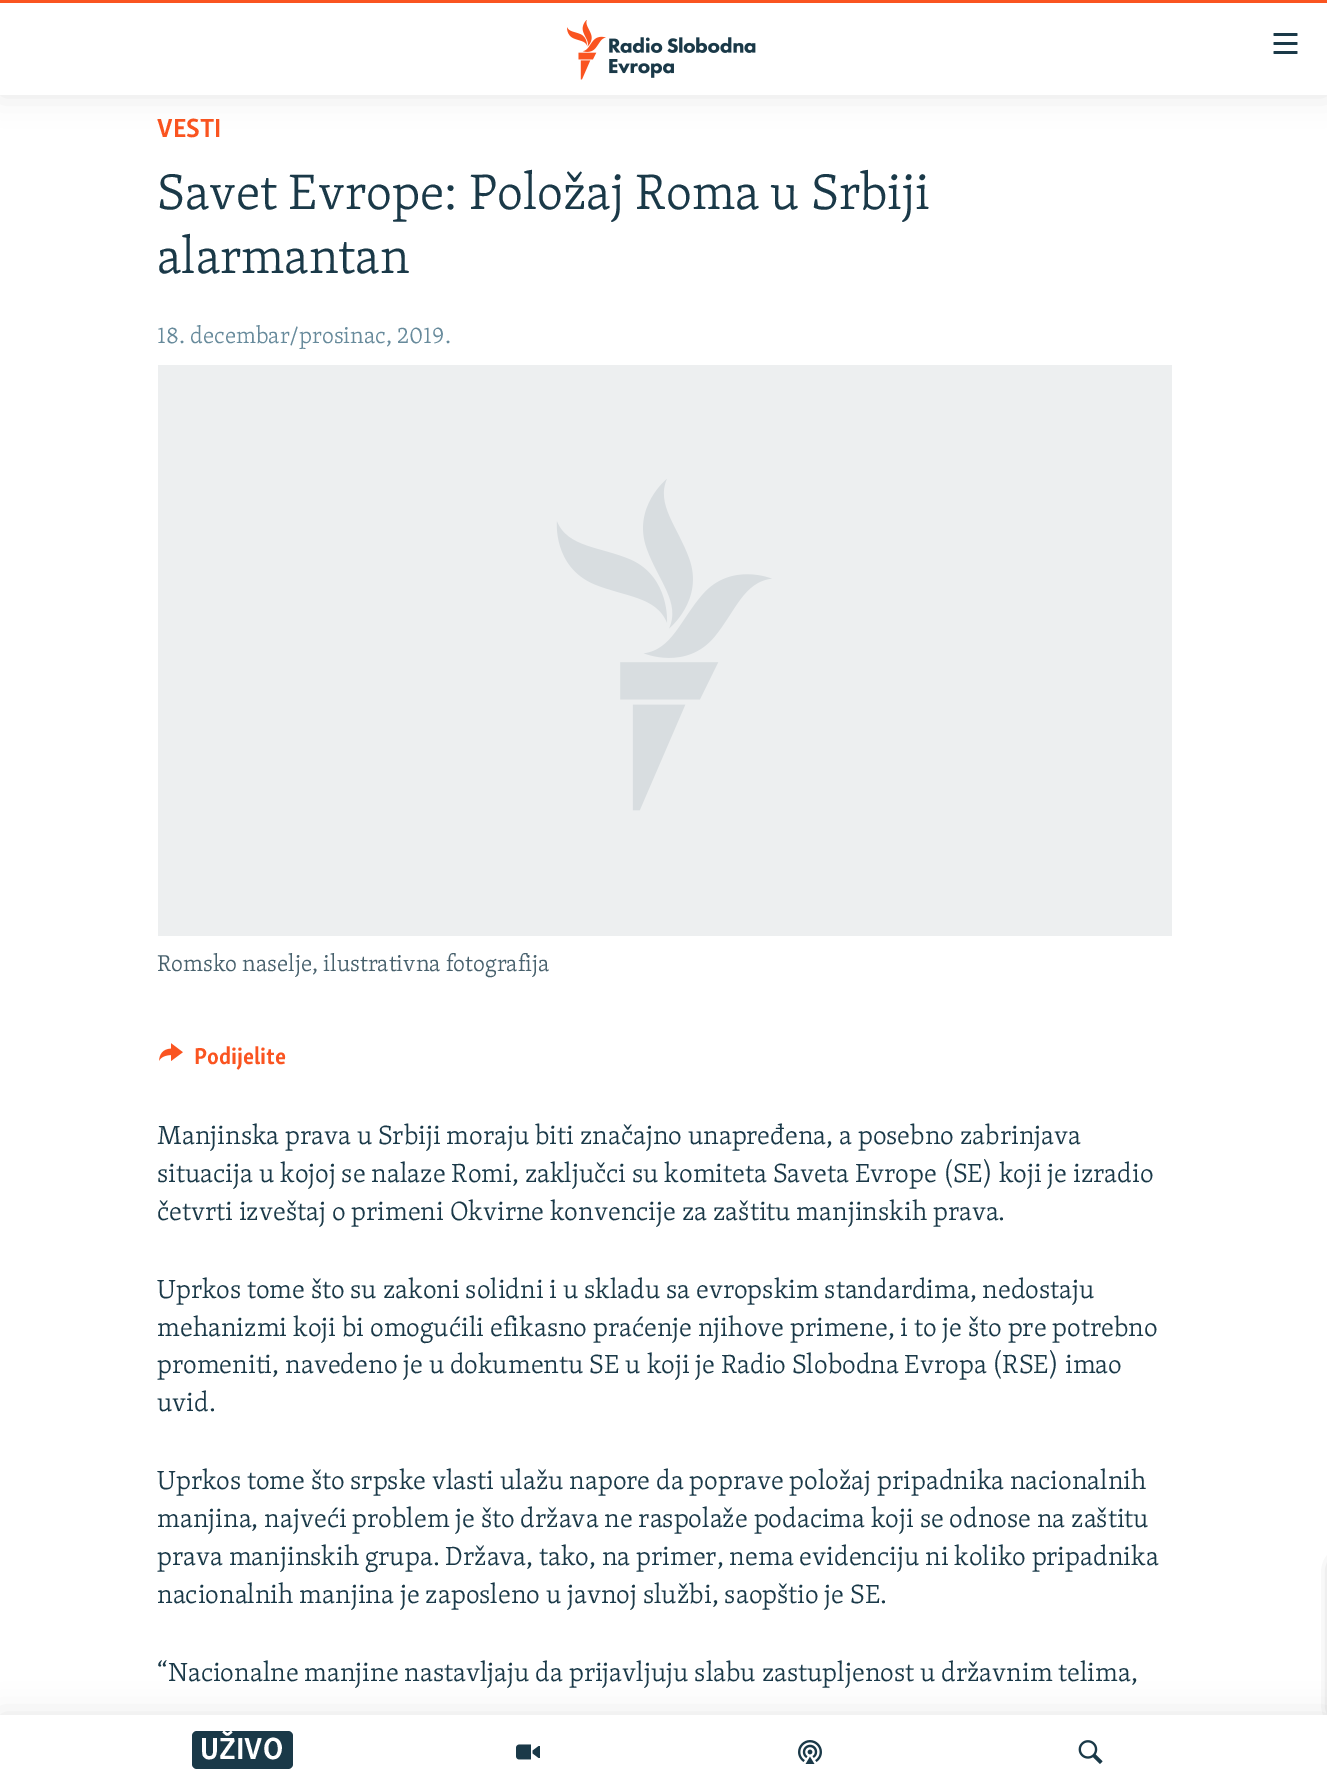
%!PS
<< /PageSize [1327 1789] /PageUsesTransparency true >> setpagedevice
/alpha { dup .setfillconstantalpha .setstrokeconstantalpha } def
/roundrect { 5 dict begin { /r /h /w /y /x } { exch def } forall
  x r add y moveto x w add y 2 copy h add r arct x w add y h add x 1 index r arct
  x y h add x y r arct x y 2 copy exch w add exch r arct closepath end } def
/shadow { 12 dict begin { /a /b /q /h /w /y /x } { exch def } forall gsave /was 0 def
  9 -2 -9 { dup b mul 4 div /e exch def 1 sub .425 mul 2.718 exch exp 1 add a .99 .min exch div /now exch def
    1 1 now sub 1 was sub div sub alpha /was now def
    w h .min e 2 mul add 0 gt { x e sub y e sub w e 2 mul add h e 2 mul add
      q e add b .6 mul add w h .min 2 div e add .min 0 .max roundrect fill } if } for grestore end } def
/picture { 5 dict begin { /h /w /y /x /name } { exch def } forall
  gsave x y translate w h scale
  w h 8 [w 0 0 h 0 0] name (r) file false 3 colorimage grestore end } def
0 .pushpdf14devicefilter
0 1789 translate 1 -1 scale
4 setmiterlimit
1 setgray
0 0 1327 1789 rectfill
/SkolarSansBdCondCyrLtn-Bold [27 0 0 -27 0 0] selectfont
0.98 0.329 0.125 setrgbcolor
157 137 moveto (VESTI) show
/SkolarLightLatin-Light [51.25 0 0 -51.25 0 0] selectfont
0.102 0.224 0.282 setrgbcolor
157 209 moveto (Savet Evrope: Položaj Roma u Srbiji) show
157 273 moveto (alarmantan) show
/SkolarLightLatin-Light [23.6 0 0 -23.6 0 0] selectfont
0.404 0.541 0.608 setrgbcolor
157 343 moveto (18. decembar/prosinac, 2019.) show
0.929 0.937 0.941 setrgbcolor
158 365 1014 571 rectfill
(img1.rgb) 556 479 216 332 picture
0.282 0.38 0.427 setrgbcolor
157 971 moveto (Romsko naselje, ilustrativna fotografija) show
(img2.rgb) 159 1043 24 18 picture
/SkolarSansBdCondCyrLtn-Bold [23.6 0 0 -23.6 0 0] selectfont
0.98 0.329 0.125 setrgbcolor
194 1064 moveto (Podijelite) show
/SkolarLightLatin-Light [27 0 0 -27 0 0] selectfont
0.102 0.224 0.282 setrgbcolor
157 1144 moveto (Manjinska prava u Srbiji moraju biti značajno unapređena, a posebno zabrinjava) show
157 1182 moveto (situacija u kojoj se nalaze Romi, zaključci su komiteta Saveta Evrope \(SE\) koji je izradio) show
157 1220 moveto (četvrti izveštaj o primeni Okvirne konvencije za zaštitu manjinskih prava.) show
157 1298 moveto (Uprkos tome što su zakoni solidni i u skladu sa evropskim standardima, nedostaju) show
157 1336 moveto (mehanizmi koji bi omogućili efikasno praćenje njihove primene, i to je što pre potrebno) show
157 1373 moveto (promeniti, navedeno je u dokumentu SE u koji je Radio Slobodna Evropa \(RSE\) imao) show
157 1411 moveto (uvid.) show
157 1489 moveto (Uprkos tome što srpske vlasti ulažu napore da poprave položaj pripadnika nacionalnih) show
157 1527 moveto (manjina, najveći problem je što država ne raspolaže podacima koji se odnose na zaštitu) show
157 1565 moveto (prava manjinskih grupa. Država, tako, na primer, nema evidenciju ni koliko pripadnika) show
157 1603 moveto (nacionalnih manjina je zaposleno u javnoj službi, saopštio je SE.) show
157 1681 moveto (“Nacionalne manjine nastavljaju da prijavljuju slabu zastupljenost u državnim telima,) show
0 setgray
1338 1562 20 153 8 7.5 0.85 shadow
0 0 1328 95 0 15 0.1 shadow
1 setgray
0 3 1327 92 rectfill
0.98 0.329 0.125 setrgbcolor
0 0 1327 3 rectfill
(img3.rgb) 567 20 189 60 picture
(img4.rgb) 1273 33 25 21 picture
0 setgray
0 1715 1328 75 0 15 0.1 shadow
1 setgray
0 1715 1327 74 rectfill
0.102 0.224 0.282 setrgbcolor
192 1731 101 38 5 roundrect fill
/SkolarSansBdCondCyrLtn-Bold [31.5 0 0 -31.5 0 0] selectfont
1 setgray
200 1759 moveto (UŽIVO) show
(img5.rgb) 516 1744 24 16 picture
(img6.rgb) 798 1740 24 24 picture
(img7.rgb) 1078 1740 25 24 picture
.poppdf14devicefilter showpage
